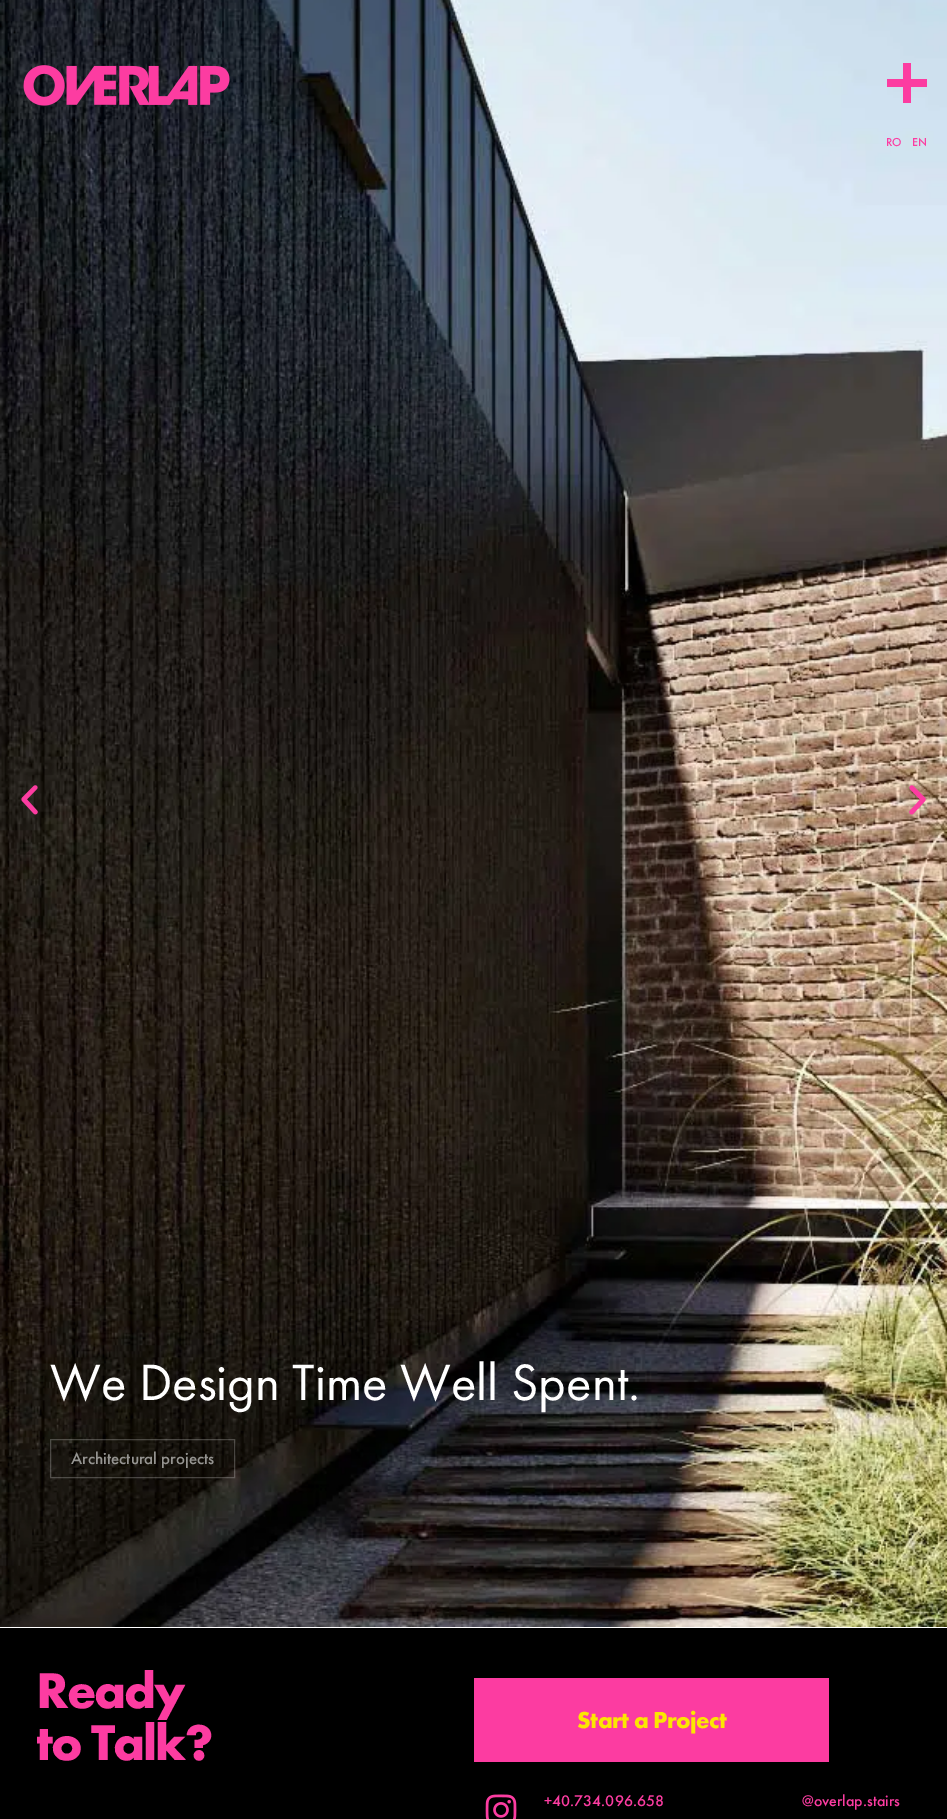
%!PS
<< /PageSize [947 1819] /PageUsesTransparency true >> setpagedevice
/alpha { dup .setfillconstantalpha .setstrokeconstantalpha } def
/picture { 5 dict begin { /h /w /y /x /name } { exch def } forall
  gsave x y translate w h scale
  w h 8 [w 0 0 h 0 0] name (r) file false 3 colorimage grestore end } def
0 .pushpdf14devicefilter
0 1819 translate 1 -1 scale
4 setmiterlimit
1 setgray
0 0 947 1819 rectfill
(img4.rgb) 0 0 947 1627 picture
(img1.rgb) 23 65 207 41 picture
0.988 0.235 0.631 setrgbcolor
newpath 911 103 moveto 911 87 lineto 927 87 lineto 927 79 lineto 911 79 lineto 911 63 lineto 903 63 lineto 903 79 lineto 887 79 lineto 887 87 lineto 903 87 lineto 903 103 lineto closepath fill
/FuturaPT-Medium [12 0 0 -12 0 0] selectfont
886 146 moveto (RO) show
912 146 moveto (EN) show
(img2.rgb) 21 785 17 30 picture
(img3.rgb) 909 785 17 30 picture
/FuturaPT-Regular [53 0 0 -53 0 0] selectfont
1 setgray
50 1400 moveto (We Design Time Well Spent.) show
0.23 alpha
50.5 1439.5 184 38 rectstroke
/FuturaPT-Medium [17 0 0 -17 0 0] selectfont
1 alpha
0.584 0.58 0.569 setrgbcolor
71 1464 moveto (Architectural projects) show
0 setgray
0 1628 947 191 rectfill
/FuturaPT-Bold [52 0 0 -52 0 0] selectfont
0.988 0.235 0.631 setrgbcolor
36 1708 moveto -2 0 (Ready) ashow
36 1760 moveto -2 0 (to Talk?) ashow
474 1678 355 84 rectfill
/FuturaPT-Bold [24 0 0 -24 0 0] selectfont
0.984 0.906 0.004 setrgbcolor
577 1728 moveto -0.5 0 (Start a Project) ashow
(img5.rgb) 485 1794 32 25 picture
/FuturaPT-Medium [16 0 0 -16 0 0] selectfont
0.988 0.235 0.631 setrgbcolor
544 1806 moveto (+40.734.096.658) show
802 1806 moveto (@overlap.stairs) show
.poppdf14devicefilter showpage
